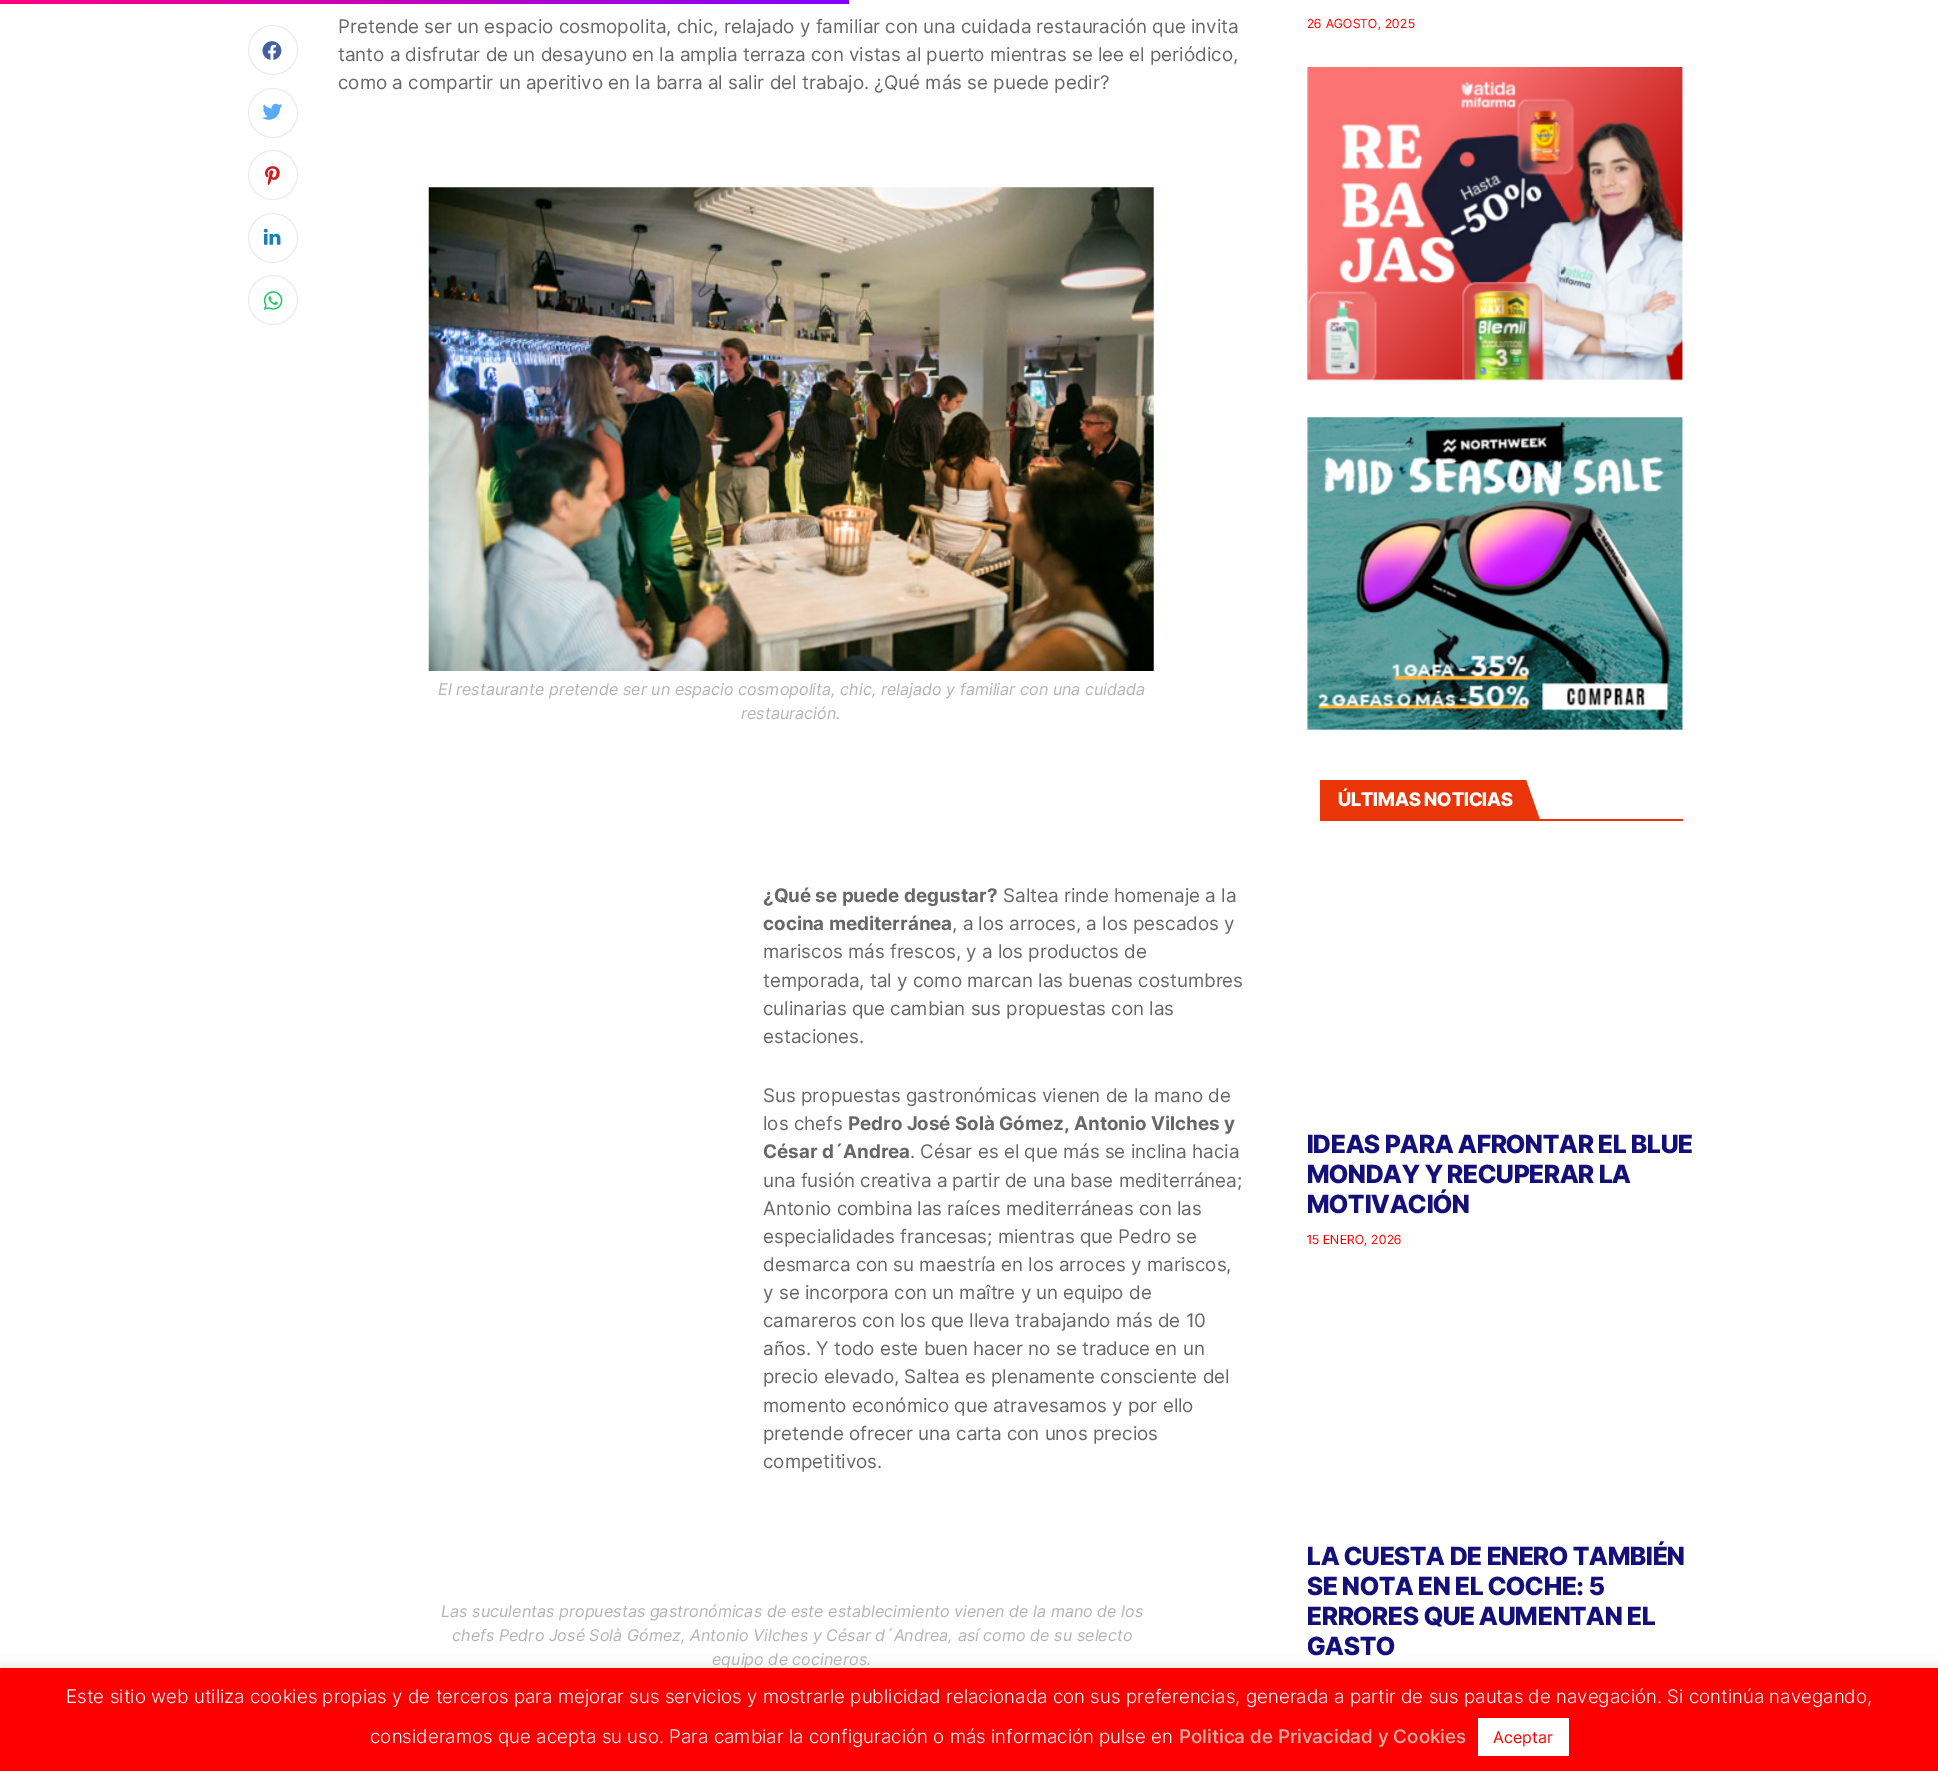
%!PS
<< /PageSize [1938 1771] /PageUsesTransparency true >> setpagedevice
/alpha { dup .setfillconstantalpha .setstrokeconstantalpha } def
/roundrect { 5 dict begin { /r /h /w /y /x } { exch def } forall
  x r add y moveto x w add y 2 copy h add r arct x w add y h add x 1 index r arct
  x y h add x y r arct x y 2 copy exch w add exch r arct closepath end } def
/shadow { 12 dict begin { /a /b /q /h /w /y /x } { exch def } forall gsave /was 0 def
  9 -2 -9 { dup b mul 4 div /e exch def 1 sub .425 mul 2.718 exch exp 1 add a .99 .min exch div /now exch def
    1 1 now sub 1 was sub div sub alpha /was now def
    w h .min e 2 mul add 0 gt { x e sub y e sub w e 2 mul add h e 2 mul add
      q e add b .6 mul add w h .min 2 div e add .min 0 .max roundrect fill } if } for grestore end } def
/picture { 5 dict begin { /h /w /y /x /name } { exch def } forall
  gsave x y translate w h scale
  w h 8 [w 0 0 h 0 0] name (r) file false 3 colorimage grestore end } def
0 .pushpdf14devicefilter
0 1771 translate 1 -1 scale
4 setmiterlimit
1 setgray
0 0 1938 1771 rectfill
gsave newpath 0 0 moveto 849 0 lineto 849 4 lineto 0 4 lineto closepath clip newpath
<< /ShadingType 2 /ColorSpace /DeviceRGB /Coords [0 1.9 849 1.9] /Extend [true true] /Function << /FunctionType 2 /Domain [0 1] /C0 [1 0 0.502] /C1 [0.506 0 1] /N 1 >> >> shfill grestore
0.914 0.925 0.937 setrgbcolor
newpath 273 50 24.5 0 360 arc closepath stroke
(img1.rgb) 262 41 20 19 picture
newpath 273 113 24.5 0 360 arc closepath stroke
(img2.rgb) 262 103 20 17 picture
newpath 273 175 24.5 0 360 arc closepath stroke
(img3.rgb) 265 166 15 19 picture
newpath 273 238 24.5 0 360 arc closepath stroke
(img4.rgb) 263 228 18 17 picture
newpath 273 300 24.5 0 360 arc closepath stroke
(img5.rgb) 263 291 20 19 picture
/Inter-Regular [18.75 0 0 -18.75 0 0] selectfont
0.404 setgray
338 33 moveto (Pretende ser un espacio cosmopolita, chic, relajado y familiar con una cuidada restauración que invita) show
338 61 moveto (tanto a disfrutar de un desayuno en la amplia terraza con vistas al puerto mientras se lee el periódico,) show
338 89 moveto (como a compartir un aperitivo en la barra al salir del trabajo. ¿Qué más se puede pedir?) show
(img6.rgb) 428 187 726 484 picture
/Inter-Italic [16.15 0 0 -16.15 0 0] selectfont
0.706 setgray
438 695 moveto (El restaurante pretende ser un espacio cosmopolita, chic, relajado y familiar con una cuidada) show
741 719 moveto (restauración.) show
/Inter-Bold [18.75 0 0 -18.75 0 0] selectfont
0.404 setgray
763 902 moveto (¿Qué se puede degustar?) show
/Inter-Regular [18.75 0 0 -18.75 0 0] selectfont
1003 902 moveto (Saltea rinde homenaje a la) show
/Inter-Bold [18.75 0 0 -18.75 0 0] selectfont
763 930 moveto (cocina mediterránea) show
/Inter-Regular [18.75 0 0 -18.75 0 0] selectfont
952 930 moveto (, a los arroces, a los pescados y) show
763 958 moveto (mariscos más frescos, y a los productos de) show
763 987 moveto (temporada, tal y como marcan las buenas costumbres) show
763 1015 moveto (culinarias que cambian sus propuestas con las) show
763 1043 moveto (estaciones.) show
763 1102 moveto (Sus propuestas gastronómicas vienen de la mano de) show
763 1130 moveto (los chefs) show
/Inter-Bold [18.75 0 0 -18.75 0 0] selectfont
848 1130 moveto (Pedro José Solà Gómez, Antonio Vilches y) show
763 1158 moveto (César d´Andrea) show
/Inter-Regular [18.75 0 0 -18.75 0 0] selectfont
910 1158 moveto (. César es el que más se inclina hacia) show
763 1187 moveto (una fusión creativa a partir de una base mediterránea;) show
763 1215 moveto (Antonio combina las raíces mediterráneas con las) show
763 1243 moveto (especialidades francesas; mientras que Pedro se) show
763 1271 moveto (desmarca con su maestría en los arroces y mariscos,) show
763 1299 moveto (y se incorpora con un maître y un equipo de) show
763 1327 moveto (camareros con los que lleva trabajando más de 10) show
763 1355 moveto (años. Y todo este buen hacer no se traduce en un) show
763 1383 moveto (precio elevado, Saltea es plenamente consciente del) show
763 1412 moveto (momento económico que atravesamos y por ello) show
763 1440 moveto (pretende ofrecer una carta con unos precios) show
763 1468 moveto (competitivos.) show
/Inter-Italic [16.15 0 0 -16.15 0 0] selectfont
0.706 setgray
441 1617 moveto (Las suculentas propuestas gastronómicas de este establecimiento vienen de la mano de los) show
452 1641 moveto (chefs Pedro José Solà Gómez, Antonio Vilches y César d´Andrea, así como de su selecto) show
712 1665 moveto (equipo de cocineros.) show
gsave
1308 0 387 30 rectclip
/InterTight-Regular [12.5 0 0 -12.5 0 0] selectfont
0.988 0 0 setrgbcolor
1307 28 moveto 0.5 0 (26 AGOSTO, 2025) ashow
grestore
(img7.rgb) 1307 67 376 314 picture
(img8.rgb) 1307 417 376 313 picture
0.918 0.208 0.035 setrgbcolor
1320 819 363 2 rectfill
1320 780 180 39 rectfill
newpath 1486 780 moveto 1526 780 lineto 1540 820 lineto 1500 820 lineto closepath fill
/InterTight-ExtraBold [18.75 0 0 -18.75 0 0] selectfont
1 setgray
1338 806 moveto (ÚLTIMAS NOTICIAS) show
gsave
1308 871 387 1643 rectclip
/InterTight-ExtraBold [25 0 0 -25 0 0] selectfont
0.082 0.059 0.475 setrgbcolor
1307 1153 moveto (IDEAS PARA AFRONTAR EL BLUE) show
1307 1183 moveto (MONDAY Y RECUPERAR LA) show
1307 1213 moveto (MOTIVACIÓN) show
grestore
/InterTight-Regular [12.5 0 0 -12.5 0 0] selectfont
0.988 0 0 setrgbcolor
1307 1244 moveto 0.5 0 (15 ENERO, 2026) ashow
gsave
1308 871 387 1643 rectclip
/InterTight-ExtraBold [25 0 0 -25 0 0] selectfont
0.082 0.059 0.475 setrgbcolor
1307 1565 moveto (LA CUESTA DE ENERO TAMBIÉN) show
1307 1595 moveto (SE NOTA EN EL COCHE: 5) show
1307 1625 moveto (ERRORES QUE AUMENTAN EL) show
1307 1655 moveto (GASTO) show
grestore
0.675 0.671 0.671 setrgbcolor
0 1666 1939 104 0 6 0.3 shadow
0.988 0 0 setrgbcolor
0 1668 1938 103 rectfill
/Inter-Light [18.75 0 0 -18.75 0 0] selectfont
1 setgray
66 1703 moveto (Este sitio web utiliza cookies propias y de terceros para mejorar sus servicios y mostrarle publicidad relacionada con sus preferencias, generada a partir de sus pautas de navegación. Si continúa navegando,) show
370 1743 moveto (consideramos que acepta su uso. Para cambiar la configuración o más información pulse en) show
/Inter-Medium [18.75 0 0 -18.75 0 0] selectfont
0.878 0.667 0.631 setrgbcolor
1179 1743 moveto (Politica de Privacidad y Cookies) show
1 setgray
1478 1718 91 38 rectfill
/Inter-Regular [16 0 0 -16 0 0] selectfont
0.988 0 0 setrgbcolor
1493 1743 moveto (Aceptar) show
.poppdf14devicefilter showpage
